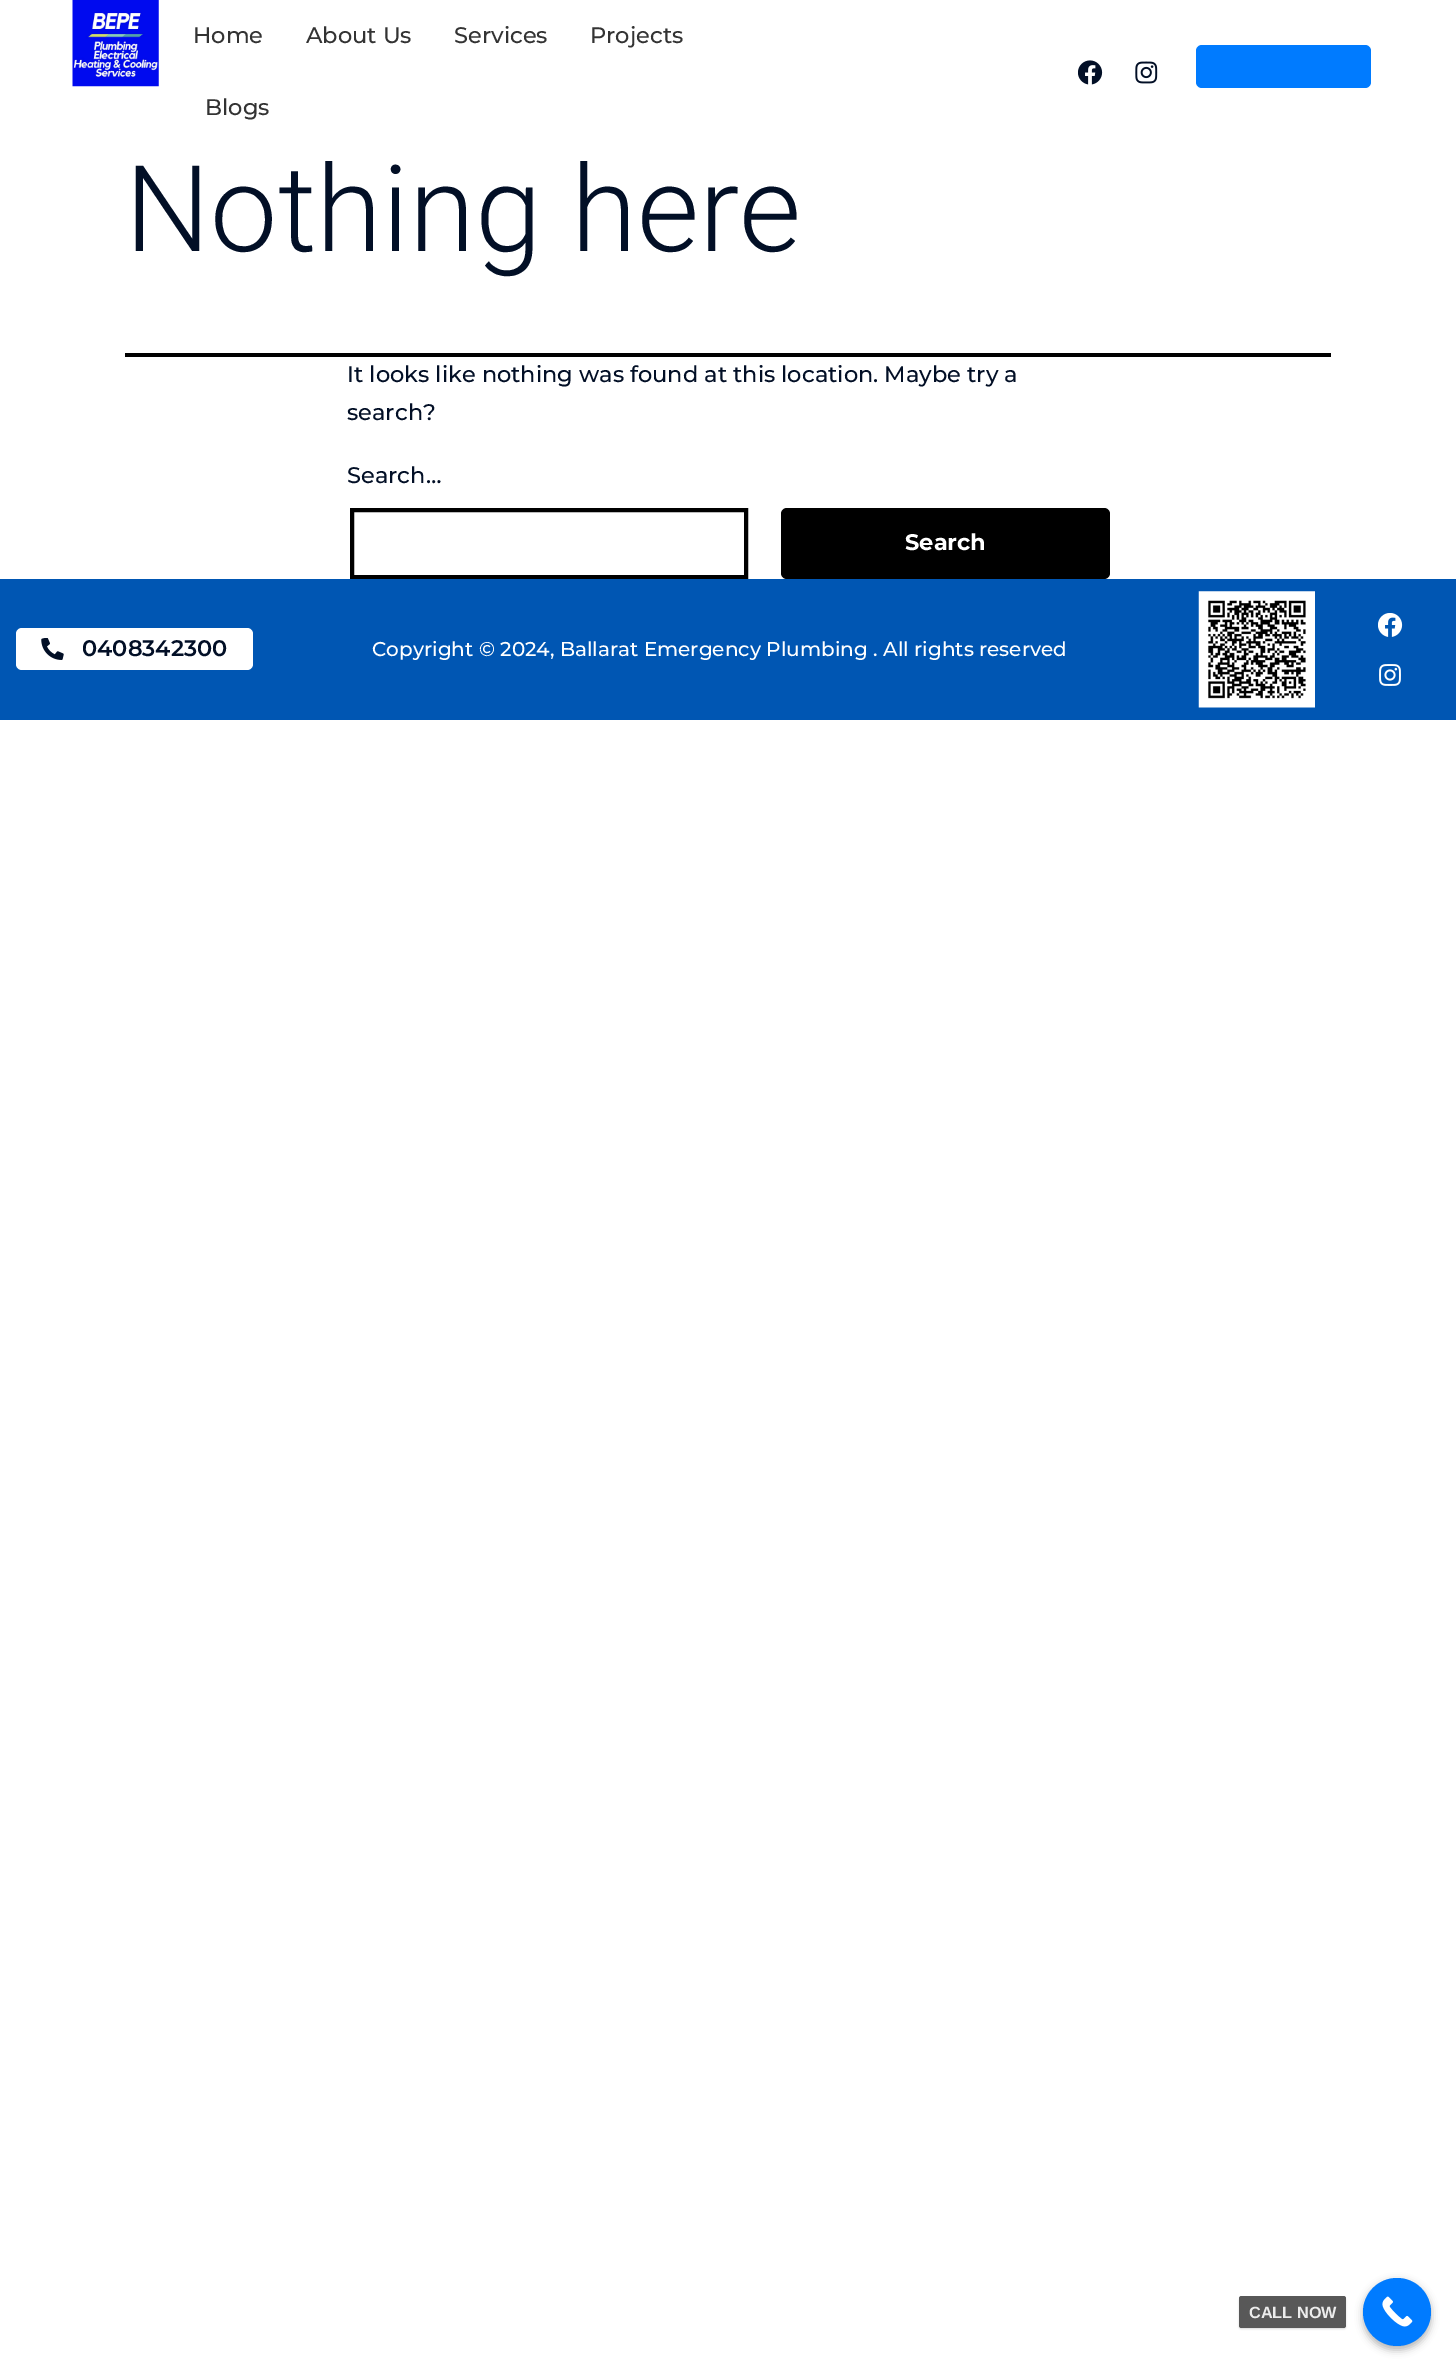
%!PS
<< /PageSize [1456 2364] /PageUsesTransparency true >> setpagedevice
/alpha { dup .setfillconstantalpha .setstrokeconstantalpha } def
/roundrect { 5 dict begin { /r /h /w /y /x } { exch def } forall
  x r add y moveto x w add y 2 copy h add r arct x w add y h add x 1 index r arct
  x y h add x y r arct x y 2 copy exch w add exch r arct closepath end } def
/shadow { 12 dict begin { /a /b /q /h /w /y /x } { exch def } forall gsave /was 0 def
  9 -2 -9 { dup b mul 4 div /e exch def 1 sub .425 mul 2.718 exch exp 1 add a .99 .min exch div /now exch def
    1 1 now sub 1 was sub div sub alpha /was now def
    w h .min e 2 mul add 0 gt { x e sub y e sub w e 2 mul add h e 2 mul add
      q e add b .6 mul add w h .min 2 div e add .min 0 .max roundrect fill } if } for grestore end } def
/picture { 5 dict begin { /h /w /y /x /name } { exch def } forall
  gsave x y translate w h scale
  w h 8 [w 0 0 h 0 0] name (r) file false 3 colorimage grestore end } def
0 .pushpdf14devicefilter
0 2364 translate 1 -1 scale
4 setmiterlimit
1 setgray
0 0 1456 2364 rectfill
(img1.rgb) 72 0 87 87 picture
/Montserrat-Medium [22.5 0 0 -22.5 0 0] selectfont
0.2 setgray
193 43 moveto (Home) show
306 43 moveto (About Us) show
454 43 moveto (Services) show
590 43 moveto (Projects) show
205 115 moveto (Blogs) show
(img2.rgb) 1078 60 25 25 picture
(img3.rgb) 1135 61 23 23 picture
0 0.482 1 setrgbcolor
1196 45 175 43 6 roundrect fill
0 setgray
125 353 1206 4 rectfill
/Roboto-Light [120 0 0 -120 0 0] selectfont
0.008 0.059 0.149 setrgbcolor
125 251 moveto (Nothing here) show
/Montserrat-Medium [22.5 0 0 -22.5 0 0] selectfont
347 382 moveto (It looks like nothing was found at this location. Maybe try a) show
347 420 moveto (search?) show
347 483 moveto (Search…) show
0 setgray
4 setlinewidth
352 510 394 67 rectstroke
781 508 329 71 6 roundrect fill
/Montserrat-Bold [22.5 0 0 -22.5 0 0] selectfont
1 setgray
905 550 moveto (Search) show
0 0.337 0.702 setrgbcolor
0 579 1456 141 rectfill
1 setgray
16 628 237 42 6 roundrect fill
(img4.rgb) 41 638 23 22 picture
/Montserrat-SemiBold [22.5 0 0 -22.5 0 0] selectfont
0.008 0.059 0.149 setrgbcolor
82 656 moveto (0408342300) show
/Montserrat-Medium [20 0 0 -20 0 0] selectfont
1 setgray
372 656 moveto (Copyright © 2024, Ballarat Emergency Plumbing . All rights reserved) show
(img5.rgb) 1198 591 117 117 picture
(img6.rgb) 1378 613 25 24 picture
(img7.rgb) 1379 664 22 22 picture
0 setgray
1363 2281 68 69 34 4 0.3 shadow
0 0.482 1 setrgbcolor
newpath 1397 2312 34 0 360 arc closepath fill
(img8.rgb) 1382 2296 31 31 picture
gsave
newpath 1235 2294 moveto 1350 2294 lineto 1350 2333 lineto 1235 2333 lineto closepath 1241.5 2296 moveto 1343.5 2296 lineto 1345 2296 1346 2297 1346 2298.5 curveto 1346 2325.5 lineto 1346 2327 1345 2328 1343.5 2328 curveto 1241.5 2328 lineto 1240 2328 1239 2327 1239 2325.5 curveto 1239 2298.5 lineto 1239 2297 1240 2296 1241.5 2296 curveto closepath eoclip newpath
0 setgray
1239 2298 107 31 2.5 1 0.15 shadow
grestore
0.9 alpha
0.275 setgray
1239 2296 107 32 2.5 roundrect fill
/LiberationSans-Bold [16.25 0 0 -16.25 0 0] selectfont
1 alpha
0.925 setgray
1249 2318 moveto (CALL NOW) show
.poppdf14devicefilter showpage
